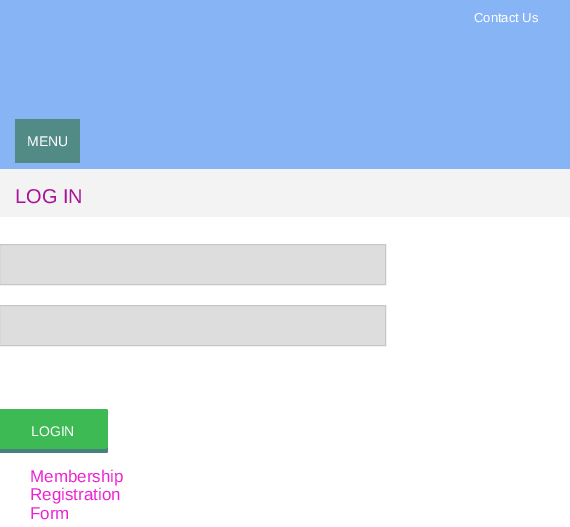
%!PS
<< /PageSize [570 527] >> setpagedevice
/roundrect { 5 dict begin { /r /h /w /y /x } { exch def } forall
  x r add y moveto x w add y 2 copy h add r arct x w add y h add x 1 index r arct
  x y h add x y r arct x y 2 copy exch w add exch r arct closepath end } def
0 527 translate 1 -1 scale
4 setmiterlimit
1 setgray
0 0 570 527 rectfill
0.525 0.706 0.961 setrgbcolor
0 0 570 169 rectfill
/LiberationSans-Regular [13 0 0 -13 0 0] selectfont
1 setgray
474 22 moveto (Contact Us) show
0.322 0.545 0.525 setrgbcolor
15 119 65 44 rectfill
/LiberationSans-Regular [14 0 0 -14 0 0] selectfont
1 setgray
27 146 moveto (MENU) show
0.953 setgray
0 169 570 48 rectfill
/LiberationSans-Regular [20 0 0 -20 0 0] selectfont
0.667 0.078 0.596 setrgbcolor
15 203 moveto (LOG IN) show
0.867 setgray
newpath -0.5 244.5 moveto 385.5 244.5 lineto 385.5 284.5 lineto -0.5 284.5 lineto closepath gsave fill grestore
0.78 setgray
stroke
0.867 setgray
newpath -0.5 305.5 moveto 385.5 305.5 lineto 385.5 345.5 lineto -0.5 345.5 lineto closepath gsave fill grestore
0.78 setgray
stroke
0.243 0.729 0.329 setrgbcolor
-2 409 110 44 2 roundrect fill
0.278 0.506 0.494 setrgbcolor
newpath -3 447 moveto -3 451 lineto -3 452 -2 453 -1 453 curveto 106 453 lineto 107 453 108 452 108 451 curveto 108 447 lineto 108 448 107 449 106 449 curveto -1 449 lineto -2 449 -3 448 -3 447 curveto closepath fill
/LiberationSans-Regular [14 0 0 -14 0 0] selectfont
1 setgray
31 436 moveto (LOGIN) show
/LiberationSans-Regular [17 0 0 -17 0 0] selectfont
0.929 0.125 0.824 setrgbcolor
30 482 moveto (Membership) show
30 500 moveto (Registration) show
30 519 moveto (Form) show
showpage
